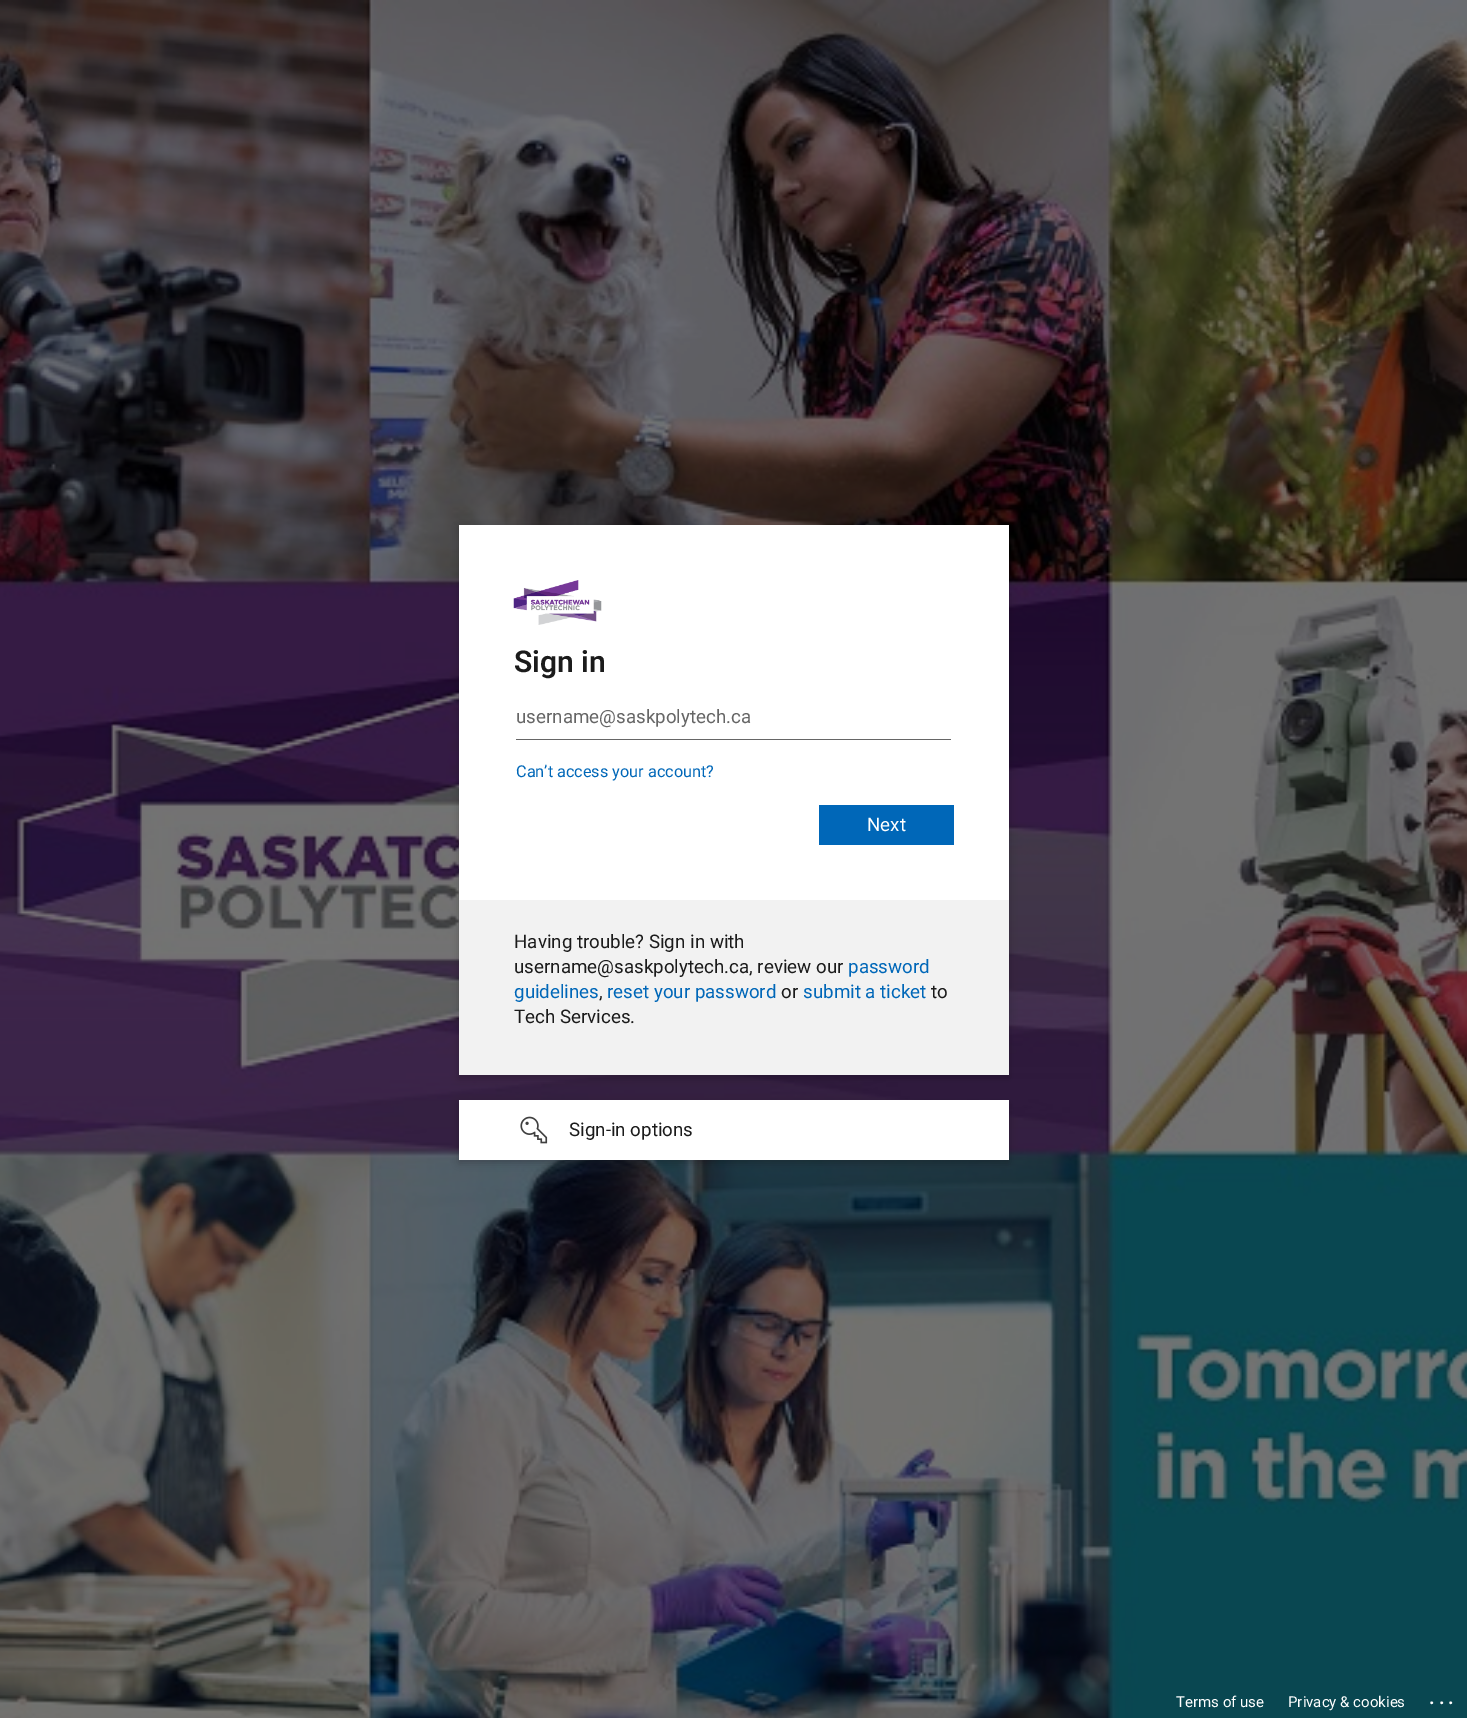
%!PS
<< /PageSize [1467 1718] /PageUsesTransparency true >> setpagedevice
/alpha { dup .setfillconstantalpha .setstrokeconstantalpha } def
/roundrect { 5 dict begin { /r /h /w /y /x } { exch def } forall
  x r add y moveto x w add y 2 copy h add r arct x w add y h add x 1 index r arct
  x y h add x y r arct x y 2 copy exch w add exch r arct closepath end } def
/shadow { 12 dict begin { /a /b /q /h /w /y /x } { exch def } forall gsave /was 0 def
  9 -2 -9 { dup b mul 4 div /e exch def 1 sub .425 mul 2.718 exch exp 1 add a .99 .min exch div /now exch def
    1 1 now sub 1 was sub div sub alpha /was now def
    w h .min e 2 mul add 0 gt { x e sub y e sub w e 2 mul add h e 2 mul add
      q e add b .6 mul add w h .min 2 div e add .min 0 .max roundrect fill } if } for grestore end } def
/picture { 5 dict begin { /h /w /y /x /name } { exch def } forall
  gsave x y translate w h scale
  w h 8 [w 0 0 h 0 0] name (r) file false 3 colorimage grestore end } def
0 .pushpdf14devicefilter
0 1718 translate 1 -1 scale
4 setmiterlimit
1 setgray
0 0 1467 1718 rectfill
(img1.rgb) 0 0 1467 1718 picture
0 setgray
459 528 550 550 0 4 0.2 shadow
1 setgray
459 525 550 375 rectfill
(img2.rgb) 513 580 89 45 picture
/Roboto-SemiBold [30 0 0 -30 0 0] selectfont
0.106 setgray
514 672 moveto (Sign in) show
0.4 setgray
516 739 435 1 rectfill
/Roboto-Regular [18.75 0 0 -18.75 0 0] selectfont
516 723 moveto (username@saskpolytech.ca) show
/Roboto-Regular [16.25 0 0 -16.25 0 0] selectfont
0 0.404 0.722 setrgbcolor
516 777 moveto (Can’t access your account?) show
819 805 135 40 rectfill
/Roboto-Regular [18.75 0 0 -18.75 0 0] selectfont
1 setgray
867 831 moveto (Next) show
0.949 setgray
459 900 550 175 rectfill
0.106 setgray
514 948 moveto (Having trouble? Sign in with) show
514 973 moveto (username@saskpolytech.ca, review our) show
0 0.404 0.722 setrgbcolor
848 973 moveto (password) show
514 998 moveto (guidelines) show
0.106 setgray
599 998 moveto (,) show
0 0.404 0.722 setrgbcolor
607 998 moveto (reset your password) show
0.106 setgray
781 998 moveto (or) show
0 0.404 0.722 setrgbcolor
803 998 moveto (submit a ticket) show
0.106 setgray
931 998 moveto (to) show
514 1023 moveto (Tech Services.) show
0 setgray
459 1103 550 60 0 4 0.2 shadow
1 setgray
459 1100 550 60 rectfill
(img3.rgb) 520 1116 28 28 picture
0.106 setgray
569 1136 moveto (Sign-in options) show
/Roboto-Regular [15 0 0 -15 0 0] selectfont
1 setgray
1176 1707 moveto (Terms of use) show
1288 1707 moveto (Privacy & cookies) show
/Roboto-SemiBold [20 0 0 -20 0 0] selectfont
1429 1704 moveto 4 0 (...) ashow
.poppdf14devicefilter showpage
